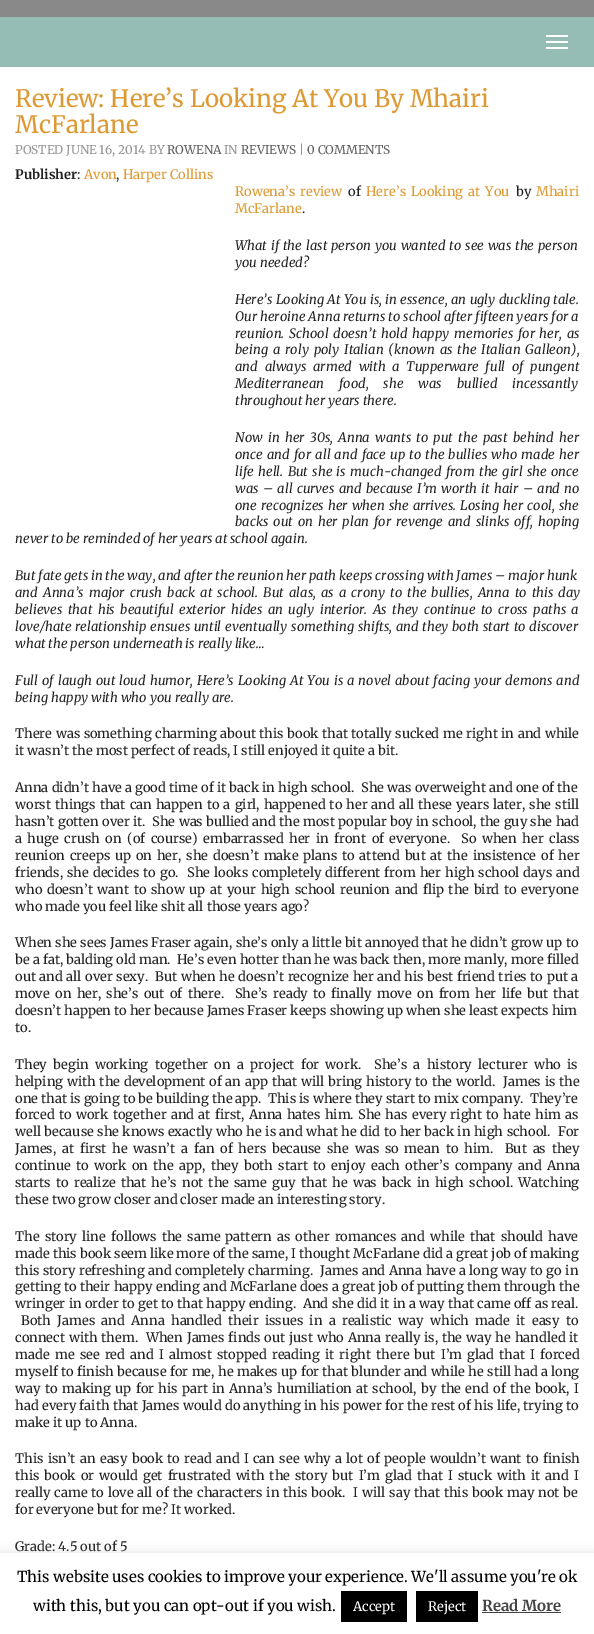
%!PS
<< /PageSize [594 1634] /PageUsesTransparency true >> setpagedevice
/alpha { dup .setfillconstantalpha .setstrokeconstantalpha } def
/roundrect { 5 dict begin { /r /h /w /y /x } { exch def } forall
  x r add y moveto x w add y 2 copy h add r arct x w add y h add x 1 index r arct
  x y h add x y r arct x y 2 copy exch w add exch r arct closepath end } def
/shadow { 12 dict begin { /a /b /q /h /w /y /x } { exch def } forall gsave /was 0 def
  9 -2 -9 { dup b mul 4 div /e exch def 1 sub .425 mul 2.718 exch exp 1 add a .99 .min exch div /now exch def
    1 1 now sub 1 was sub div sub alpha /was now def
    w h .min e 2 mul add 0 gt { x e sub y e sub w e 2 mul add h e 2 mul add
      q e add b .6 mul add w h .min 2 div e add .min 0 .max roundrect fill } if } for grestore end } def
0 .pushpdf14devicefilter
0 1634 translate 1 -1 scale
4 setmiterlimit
0.537 setgray
0 0 594 1634 rectfill
0.584 0.741 0.71 setrgbcolor
0 17 594 50 rectfill
1 setgray
546 35 22 2 1 roundrect fill
546 41 22 2 1 roundrect fill
546 47 22 2 1 roundrect fill
0 67 594 1486 rectfill
/Merriweather-Regular [24 0 0 -24 0 0] selectfont
0.867 0.6 0.2 setrgbcolor
15 107 moveto (Review: Here’s Looking At You By Mhairi) show
15 133 moveto (McFarlane) show
/Merriweather-Regular [12 0 0 -12 0 0] selectfont
0.58 setgray
15 154 moveto (POSTED JUNE 16, 2014 BY) show
0.376 setgray
167 154 moveto (ROWENA) show
0.58 setgray
224 154 moveto (IN) show
0.376 setgray
241 154 moveto (REVIEWS) show
0.58 setgray
299 154 moveto (|) show
0.376 setgray
307 154 moveto (0 COMMENTS) show
/Merriweather-Bold [13 0 0 -13 0 0] selectfont
0.133 setgray
15 179 moveto (Publisher) show
/Merriweather-Regular [13 0 0 -13 0 0] selectfont
77 179 moveto (:) show
0.867 0.6 0.2 setrgbcolor
84 179 moveto (Avon) show
0.133 setgray
116 179 moveto (,) show
0.867 0.6 0.2 setrgbcolor
123 179 moveto (Harper Collins) show
235 196 moveto 2 0 32 (Rowena’s review) widthshow
0.133 setgray
348 196 moveto (of) show
0.867 0.6 0.2 setrgbcolor
366 196 moveto 2 0 32 (Here’s Looking at You) widthshow
0.133 setgray
516 196 moveto (by) show
0.867 0.6 0.2 setrgbcolor
536 196 moveto (Mhairi) show
235 213 moveto (McFarlane) show
0.133 setgray
302 213 moveto (.) show
/Merriweather-Italic [13 0 0 -13 0 0] selectfont
235 250 moveto 1 0 32 (What if the last person you wanted to see was the person) widthshow
235 267 moveto (you needed?) show
235 304 moveto 0.5 0 32 (Here’s Looking At You is, in essence, an ugly duckling tale.) widthshow
235 321 moveto (Our heroine Anna returns to school after fifteen years for a) show
235 338 moveto 1.75 0 32 (reunion. School doesn’t hold happy memories for her, as) widthshow
235 354 moveto 2 0 32 (being a roly poly Italian \(known as the Italian Galleon\),) widthshow
235 371 moveto 3.75 0 32 (and always armed with a Tupperware full of pungent) widthshow
235 388 moveto 12 0 32 (Mediterranean food, she was bullied incessantly) widthshow
235 405 moveto (throughout her years there.) show
235 442 moveto 2.4 0 32 (Now in her 30s, Anna wants to put the past behind her) widthshow
235 459 moveto 1.25 0 32 (once and for all and face up to the bullies who made her) widthshow
235 476 moveto 1.4 0 32 (life hell. But she is much-changed from the girl she once) widthshow
235 493 moveto 1.4 0 32 (was – all curves and because I’m worth it hair – and no) widthshow
235 510 moveto 1.1 0 32 (one recognizes her when she arrives. Losing her cool, she) widthshow
235 526 moveto 2 0 32 (backs out on her plan for revenge and slinks off, hoping) widthshow
15 543 moveto (never to be reminded of her years at school again.) show
15 580 moveto (But fate gets in the way, and after the reunion her path keeps crossing with James – major hunk) show
15 597 moveto 2.25 0 32 (and Anna’s major crush back at school. But alas, as a crony to the bullies, Anna to this day) widthshow
15 614 moveto 2.6 0 32 (believes that his beautiful exterior hides an ugly interior. As they continue to cross paths a) widthshow
15 631 moveto 0.8 0 32 (love/hate relationship ensues until eventually something shifts, and they both start to discover) widthshow
15 648 moveto (what the person underneath is really like…) show
15 685 moveto 1.1 0 32 (Full of laugh out loud humor, Here’s Looking At You is a novel about facing your demons and) widthshow
15 702 moveto (being happy with who you really are.) show
/Merriweather-Regular [13 0 0 -13 0 0] selectfont
15 738 moveto 0.5 0 32 (There was something charming about this book that totally sucked me right in and while) widthshow
15 755 moveto (it wasn’t the most perfect of reads, I still enjoyed it quite a bit.) show
15 792 moveto 0.1 0 32 (Anna didn’t have a good time of it back in high school.  She was overweight and one of the) widthshow
15 809 moveto 1 0 32 (worst things that can happen to a girl, happened to her and all these years later, she still) widthshow
15 826 moveto 0.25 0 32 (hasn’t gotten over it.  She was bullied and the most popular boy in school, the guy she had) widthshow
15 843 moveto 2.4 0 32 (a huge crush on \(of course\) embarrassed her in front of everyone.  So when her class) widthshow
15 860 moveto 1.75 0 32 (reunion creeps up on her, she doesn’t make plans to attend but at the insistence of her) widthshow
15 877 moveto 1 0 32 (friends, she decides to go.  She looks completely different from her high school days and) widthshow
15 894 moveto 1.6 0 32 (who doesn’t want to show up at your high school reunion and flip the bird to everyone) widthshow
15 911 moveto (who made you feel like shit all those years ago?) show
15 947 moveto 0.25 0 32 (When she sees James Fraser again, she’s only a little bit annoyed that he didn’t grow up to) widthshow
15 964 moveto (be a fat, balding old man.  He’s even hotter than he was back then, more manly, more filled) show
15 981 moveto 0.5 0 32 (out and all over sexy.  But when he doesn’t recognize her and his best friend tries to put a) widthshow
15 998 moveto 2.25 0 32 (move on her, she’s out of there.  She’s ready to finally move on from her life but that) widthshow
15 1015 moveto (doesn’t happen to her because James Fraser keeps showing up when she least expects him) show
15 1032 moveto (to.) show
15 1069 moveto 3.25 0 32 (They begin working together on a project for work.  She’s a history lecturer who is) widthshow
15 1086 moveto 0.7 0 32 (helping with the development of an app that will bring history to the world.  James is the) widthshow
15 1103 moveto (one that is going to be building the app.  This is where they start to mix company.  They’re) show
15 1119 moveto 1.25 0 32 (forced to work together and at first, Anna hates him. She has every right to hate him as) widthshow
15 1136 moveto 0.4 0 32 (well because she knows exactly who he is and what he did to her back in high school.  For) widthshow
15 1153 moveto 2.75 0 32 (James, at first he wasn’t a fan of hers because she was so mean to him.  But as they) widthshow
15 1170 moveto 2.25 0 32 (continue to work on the app, they both start to enjoy each other’s company and Anna) widthshow
15 1187 moveto 2.1 0 32 (starts to realize that he’s not the same guy that he was back in high school. Watching) widthshow
15 1204 moveto (these two grow closer and closer made an interesting story.) show
15 1241 moveto 2.1 0 32 (The story line follows the same pattern as other romances and while that should have) widthshow
15 1258 moveto (made this book seem like more of the same, I thought McFarlane did a great job of making) show
15 1275 moveto 0.5 0 32 (this story refreshing and completely charming.  James and Anna have a long way to go in) widthshow
15 1291 moveto 0.25 0 32 (getting to their happy ending and McFarlane does a great job of putting them through the) widthshow
15 1308 moveto 0.3 0 32 (wringer in order to get to that happy ending.  And she did it in a way that came off as real.) widthshow
21 1325 moveto 3.25 0 32 (Both James and Anna handled their issues in a realistic way which made it easy to) widthshow
15 1342 moveto 0.8 0 32 (connect with them.  When James finds out just who Anna really is, the way he handled it) widthshow
15 1359 moveto 2.1 0 32 (made me see red and I almost stopped reading it right there but I’m glad that I forced) widthshow
15 1376 moveto 0.25 0 32 (myself to finish because for me, he makes up for that blunder and while he still had a long) widthshow
15 1393 moveto 1.3 0 32 (way to making up for his part in Anna’s humiliation at school, by the end of the book, I) widthshow
15 1410 moveto 0.25 0 32 (had every faith that James would do anything in his power for the rest of his life, trying to) widthshow
15 1427 moveto (make it up to Anna.) show
15 1463 moveto 1.25 0 32 (This isn’t an easy book to read and I can see why a lot of people wouldn’t want to finish) widthshow
15 1480 moveto 2 0 32 (this book or would get frustrated with the story but I’m glad that I stuck with it and I) widthshow
15 1497 moveto 0.8 0 32 (really came to love all of the characters in this book.  I will say that this book may not be) widthshow
15 1514 moveto (for everyone but for me? It worked.) show
15 1551 moveto (Grade: 4.5 out of 5) show
0.675 0.671 0.671 setrgbcolor
0 1552 594 81 0 5 0.3 shadow
1 setgray
0 1553 594 81 rectfill
/Merriweather-Regular [15 0 0 -15 0 0] selectfont
0 setgray
17 1582 moveto (This website uses cookies to improve your experience. We'll assume you're ok) show
33 1611 moveto (with this, but you can opt-out if you wish.) show
341 1591 66 31 rectfill
/Merriweather-Regular [13 0 0 -13 0 0] selectfont
1 setgray
353 1611 moveto (Accept) show
0 setgray
416 1591 62 31 rectfill
1 setgray
428 1611 moveto (Reject) show
/Merriweather-Bold [15 0 0 -15 0 0] selectfont
0.267 setgray
482 1611 moveto (Read More) show
482 1612 79 1 rectfill
.poppdf14devicefilter showpage
